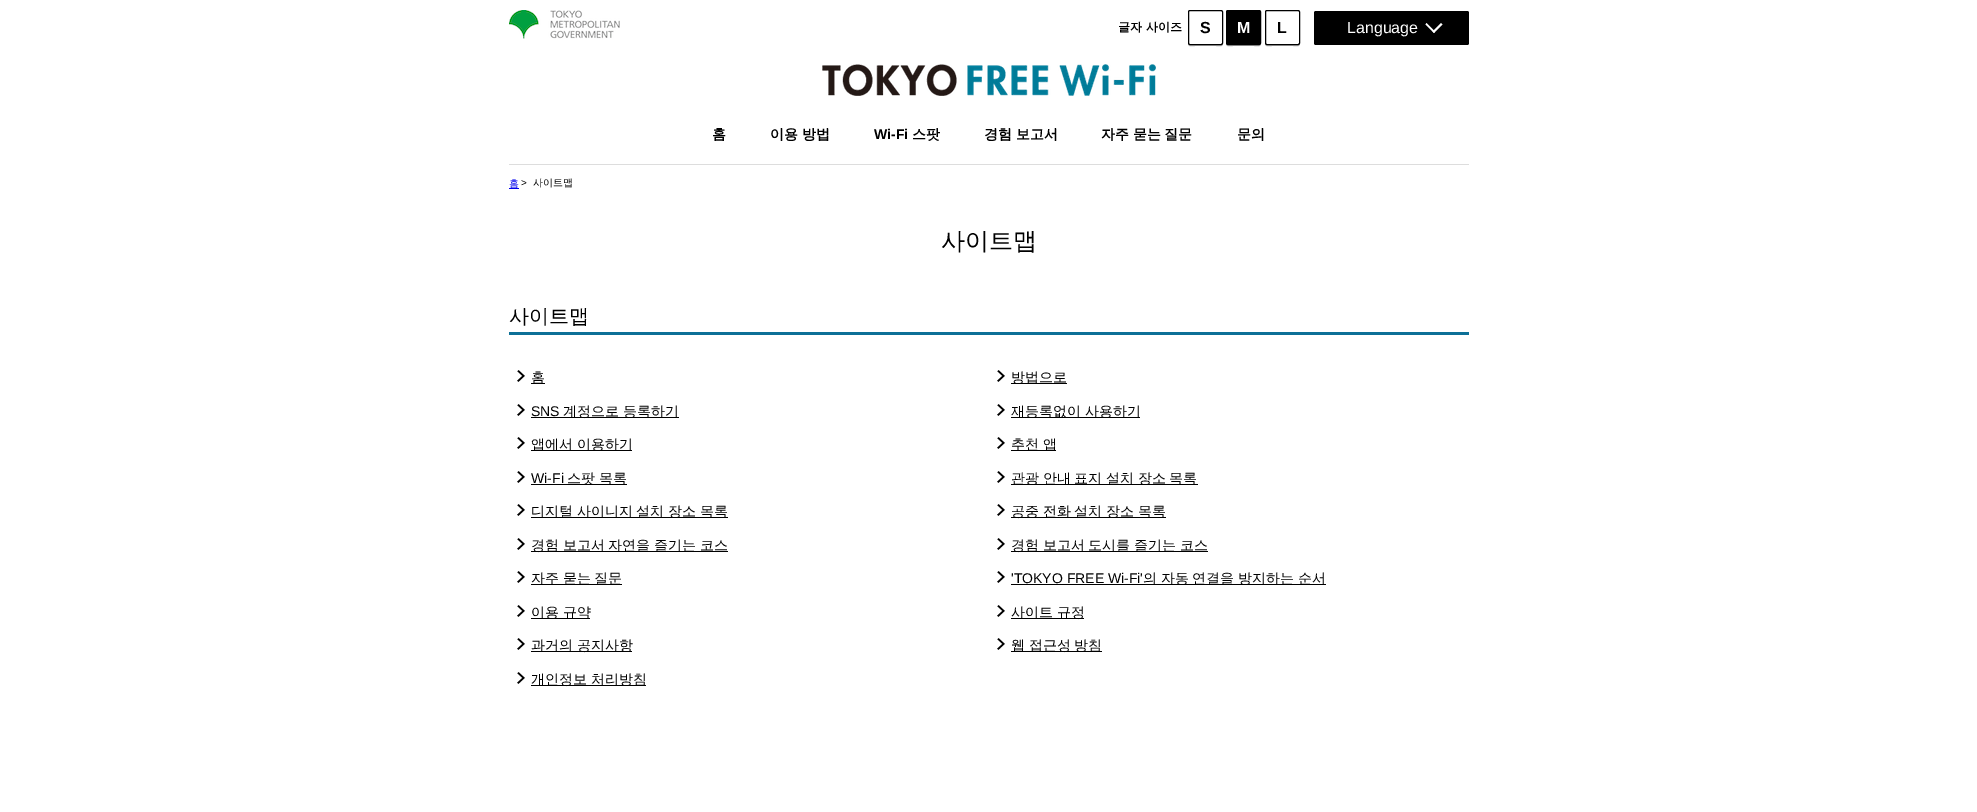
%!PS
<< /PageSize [1977 812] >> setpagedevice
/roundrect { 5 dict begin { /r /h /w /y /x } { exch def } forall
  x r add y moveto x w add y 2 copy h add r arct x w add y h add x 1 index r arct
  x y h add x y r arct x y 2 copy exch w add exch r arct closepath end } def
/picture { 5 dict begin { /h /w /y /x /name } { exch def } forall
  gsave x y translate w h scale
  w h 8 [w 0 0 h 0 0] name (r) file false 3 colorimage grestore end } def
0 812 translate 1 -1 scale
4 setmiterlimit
1 setgray
0 0 1977 812 rectfill
(img1.rgb) 509 10 111 29 picture
/WenQuanYiZenHei-Bold [12 0 0 -12 0 0] selectfont
0 setgray
1118 31 moveto (글자 사이즈) show
0.702 setgray
newpath 1188 43 moveto 1188 47.5 1191.5 46 1195 46 curveto 1216 46 lineto 1219.5 46 1223 47.5 1223 43 curveto 1223 44 1222 45 1221 45 curveto 1190 45 lineto 1189 45 1188 44 1188 43 curveto closepath fill
0 setgray
1188.5 10.5 34 34 1.5 roundrect stroke
/LiberationSans-Bold [16 0 0 -16 0 0] selectfont
1200 33 moveto (S) show
0.702 setgray
newpath 1226 43 moveto 1226 47.5 1229.5 46 1233 46 curveto 1254 46 lineto 1257.5 46 1261 47.5 1261 43 curveto 1261 44 1260 45 1259 45 curveto 1228 45 lineto 1227 45 1226 44 1226 43 curveto closepath fill
0 setgray
1226.5 10.5 34 34 1.5 roundrect gsave fill grestore
stroke
1 setgray
1237 33 moveto (M) show
0.702 setgray
newpath 1265 43 moveto 1265 47.5 1268.5 46 1272 46 curveto 1293 46 lineto 1296.5 46 1300 47.5 1300 43 curveto 1300 44 1299 45 1298 45 curveto 1267 45 lineto 1266 45 1265 44 1265 43 curveto closepath fill
0 setgray
1265.5 10.5 34 34 1.5 roundrect stroke
1277 33 moveto (L) show
1314 11 155 34 2 roundrect fill
/LiberationSans-Regular [16 0 0 -16 0 0] selectfont
1 setgray
1347 33 moveto (Language) show
newpath 1442.5 24.5 moveto 1434 33 lineto 1432.5 31.5 lineto 1441 23 lineto closepath fill
newpath 1435 31.5 moveto 1434 33 lineto 1425.5 24.5 lineto 1426.5 23 lineto closepath fill
(img2.rgb) 822 64 334 32 picture
/WenQuanYiZenHei-Bold [14 0 0 -14 0 0] selectfont
0 setgray
712 139 moveto (홈) show
770 139 moveto -0.5 0 32 (이용 방법) widthshow
/LiberationSans-Bold [14 0 0 -14 0 0] selectfont
874 139 moveto (Wi-Fi) show
/WenQuanYiZenHei-Bold [14 0 0 -14 0 0] selectfont
912 139 moveto (스팟) show
984 139 moveto -0.5 0 32 (경험 보고서) widthshow
1101 139 moveto -0.5 0 32 (자주 묻는 질문) widthshow
1237 139 moveto (문의) show
0.867 setgray
509 164 960 1 rectfill
0 0 0.933 setrgbcolor
509 188 10 1 rectfill
/WenQuanYiZenHei-Medium [10 0 0 -10 0 0] selectfont
509 187 moveto (홈) show
/LiberationSans-Regular [10 0 0 -10 0 0] selectfont
0 setgray
521 186 moveto (>) show
/WenQuanYiZenHei-Medium [10 0 0 -10 0 0] selectfont
533 186 moveto (사이트맵) show
/WenQuanYiZenHei-Medium [24 0 0 -24 0 0] selectfont
941 249 moveto (사이트맵) show
0.051 0.439 0.592 setrgbcolor
509 332 960 3 rectfill
/WenQuanYiZenHei-Medium [20 0 0 -20 0 0] selectfont
0 setgray
509 323 moveto (사이트맵) show
(img3.rgb) 517 370 8 12 picture
531 383 14 1 rectfill
/WenQuanYiZenHei-Medium [14 0 0 -14 0 0] selectfont
531 382 moveto (홈) show
(img3.rgb) 997 370 8 12 picture
1011 383 56 1 rectfill
1011 382 moveto (방법으로) show
(img3.rgb) 517 404 8 12 picture
/LiberationSans-Regular [14 0 0 -14 0 0] selectfont
531 416 moveto (SNS) show
531 417 148 1 rectfill
/WenQuanYiZenHei-Medium [14 0 0 -14 0 0] selectfont
563 416 moveto (계정으로 등록하기) show
(img3.rgb) 997 404 8 12 picture
1011 417 129 1 rectfill
1011 416 moveto -0.5 0 32 (재등록없이 사용하기) widthshow
(img3.rgb) 517 437 8 12 picture
531 450 101 1 rectfill
531 449 moveto -0.5 0 32 (앱에서 이용하기) widthshow
(img3.rgb) 997 437 8 12 picture
1011 450 45 1 rectfill
1011 449 moveto -0.5 0 32 (추천 앱) widthshow
(img3.rgb) 517 471 8 12 picture
/LiberationSans-Regular [14 0 0 -14 0 0] selectfont
531 483 moveto (Wi-Fi) show
531 484 96 1 rectfill
/WenQuanYiZenHei-Medium [14 0 0 -14 0 0] selectfont
567 483 moveto (스팟 목록) show
(img3.rgb) 997 471 8 12 picture
1011 484 187 1 rectfill
1011 483 moveto -0.5 0 32 (관광 안내 표지 설치 장소 목록) widthshow
(img3.rgb) 517 504 8 12 picture
531 517 197 1 rectfill
531 516 moveto -0.5 0 32 (디지털 사이니지 설치 장소 목록) widthshow
(img3.rgb) 997 504 8 12 picture
1011 517 155 1 rectfill
1011 516 moveto -0.5 0 32 (공중 전화 설치 장소 목록) widthshow
(img3.rgb) 517 538 8 12 picture
531 551 197 1 rectfill
531 550 moveto -0.5 0 32 (경험 보고서 자연을 즐기는 코스) widthshow
(img3.rgb) 997 538 8 12 picture
1011 551 197 1 rectfill
1011 550 moveto -0.5 0 32 (경험 보고서 도시를 즐기는 코스) widthshow
(img3.rgb) 517 571 8 12 picture
531 584 91 1 rectfill
531 583 moveto -0.5 0 32 (자주 묻는 질문) widthshow
(img3.rgb) 997 571 8 12 picture
/LiberationSans-Regular [14 0 0 -14 0 0] selectfont
1011 583 moveto ('TOKYO FREE Wi-Fi') show
1011 584 315 1 rectfill
/WenQuanYiZenHei-Medium [14 0 0 -14 0 0] selectfont
1143 583 moveto (의) show
1161 583 moveto (자동) show
1192 583 moveto (연결을) show
1238 583 moveto (방지하는) show
1298 583 moveto (순서) show
(img3.rgb) 517 605 8 12 picture
531 618 59 1 rectfill
531 617 moveto -0.5 0 32 (이용 규약) widthshow
(img3.rgb) 997 605 8 12 picture
1011 618 73 1 rectfill
1011 617 moveto -0.5 0 32 (사이트 규정) widthshow
(img3.rgb) 517 638 8 12 picture
531 651 101 1 rectfill
531 650 moveto -0.5 0 32 (과거의 공지사항) widthshow
(img3.rgb) 997 638 8 12 picture
1011 651 91 1 rectfill
1011 650 moveto -0.5 0 32 (웹 접근성 방침) widthshow
(img3.rgb) 517 672 8 12 picture
531 685 115 1 rectfill
531 684 moveto -0.5 0 32 (개인정보 처리방침) widthshow
showpage
